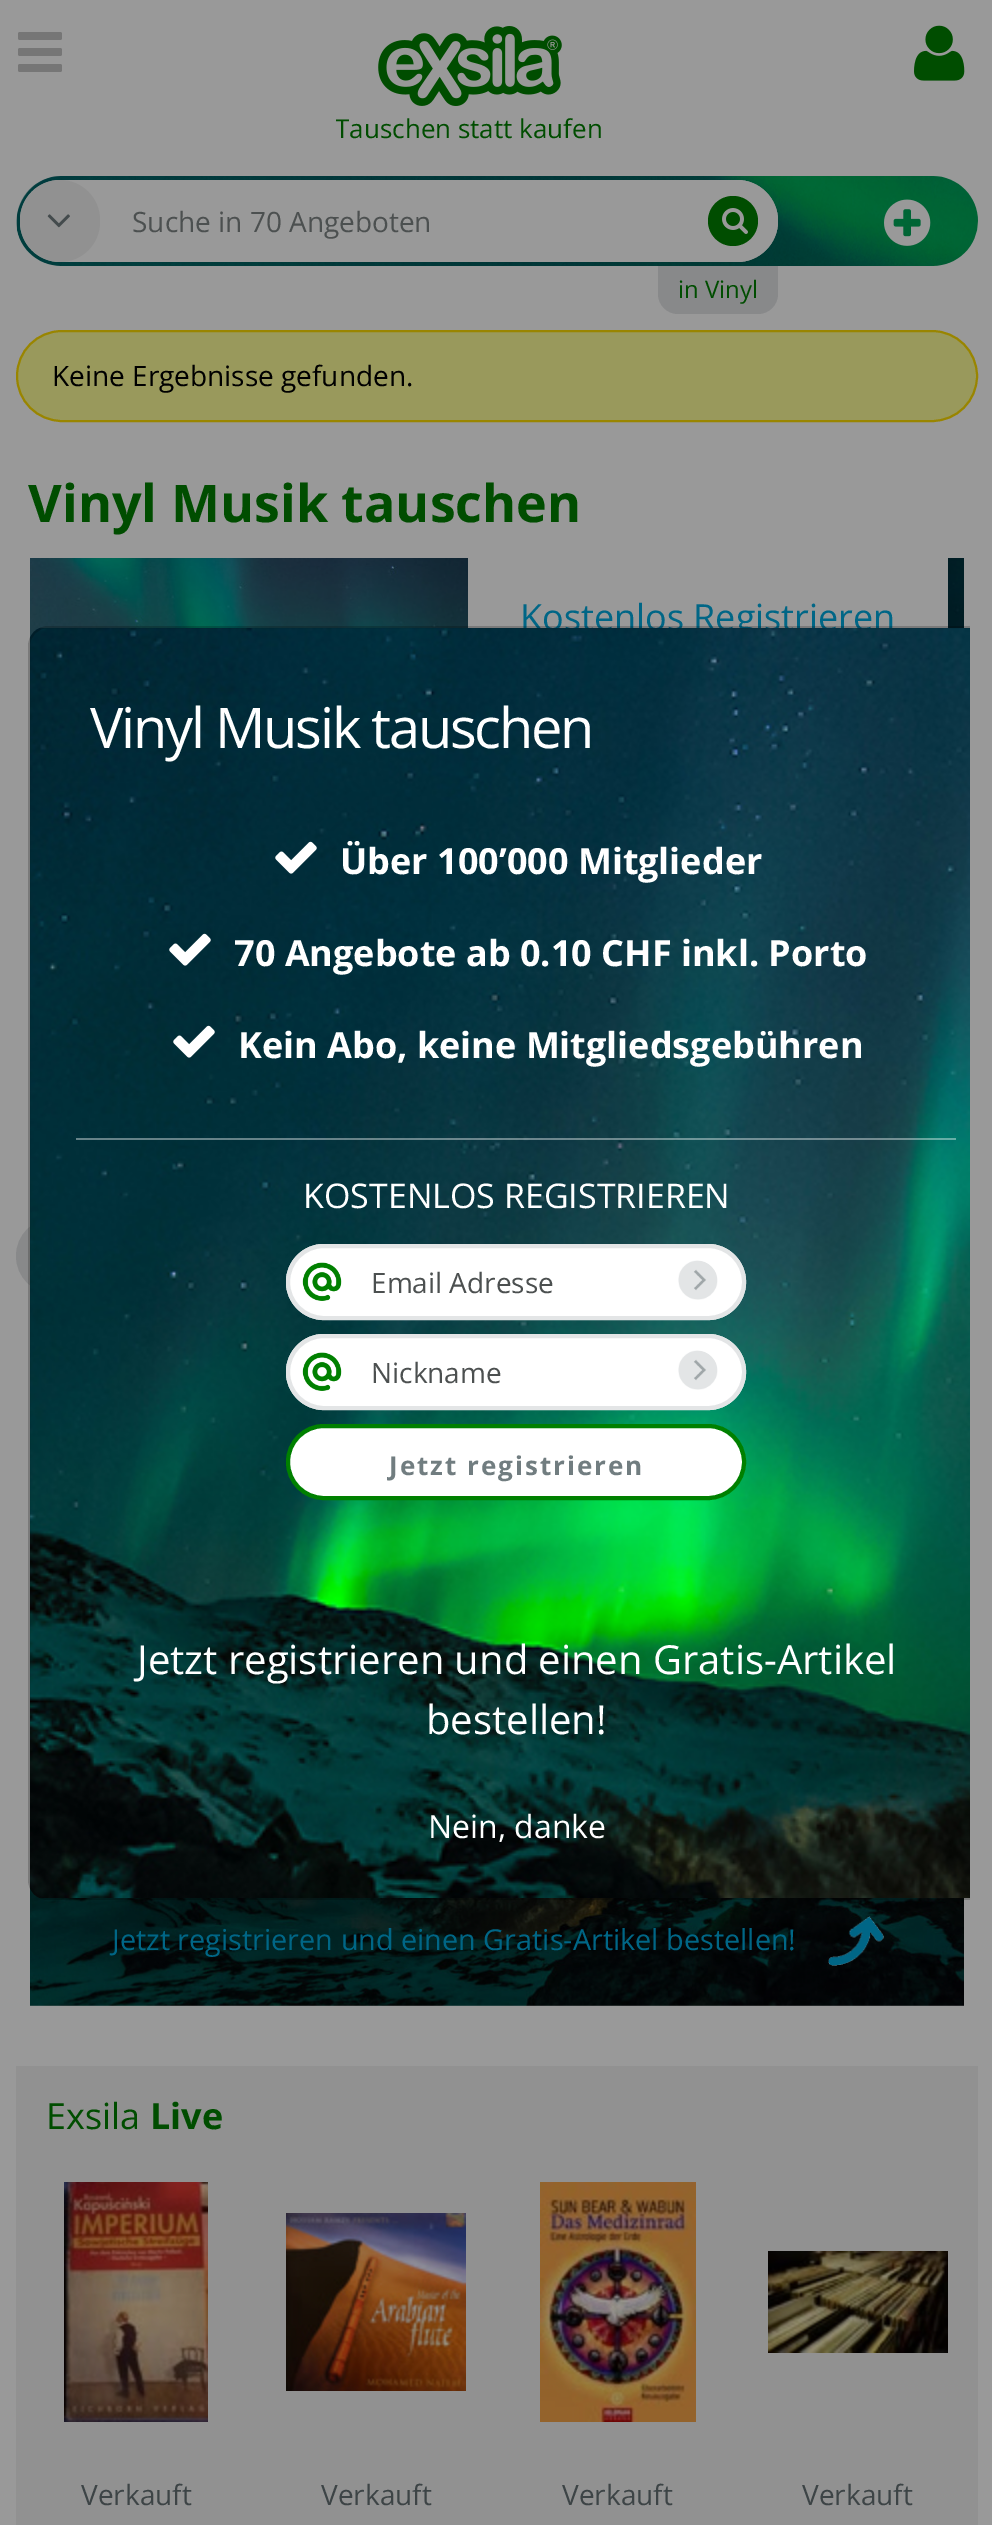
%!PS
<< /PageSize [992 2525] /PageUsesTransparency true >> setpagedevice
/alpha { dup .setfillconstantalpha .setstrokeconstantalpha } def
/roundrect { 5 dict begin { /r /h /w /y /x } { exch def } forall
  x r add y moveto x w add y 2 copy h add r arct x w add y h add x 1 index r arct
  x y h add x y r arct x y 2 copy exch w add exch r arct closepath end } def
/picture { 5 dict begin { /h /w /y /x /name } { exch def } forall
  gsave x y translate w h scale
  w h 8 [w 0 0 h 0 0] name (r) file false 3 colorimage grestore end } def
0 .pushpdf14devicefilter
0 2525 translate 1 -1 scale
4 setmiterlimit
0.6 setgray
0 0 992 2525 rectfill
(img1.rgb) 914 25 51 56 picture
0.463 setgray
18 32 44 8 2 roundrect fill
18 48 44 8 2 roundrect fill
18 64 44 8 2 roundrect fill
(img2.rgb) 378 26 184 80 picture
gsave
336 12 266 130 rectclip
/OpenSans-Regular [26 0 0 -26 0 0] selectfont
0 0.302 0 setrgbcolor
335 138 moveto (Tauschen statt kaufen) show
grestore
(img3.rgb) 16 176 962 90 picture
0.6 setgray
20 180 758 82 41 roundrect fill
0.569 setgray
20 180 80 82 40 roundrect fill
(img4.rgb) 47 214 23 14 picture
0.6 setgray
newpath 100 180 moveto 737 180 lineto 759.5 180 778 198.5 778 221 curveto 778 243.5 759.5 262 737 262 curveto 100 262 lineto closepath fill
/OpenSans-Regular [28 0 0 -28 0 0] selectfont
0.298 0.314 0.314 setrgbcolor
132 232 moveto (Suche in 70 Angeboten) show
0 0.302 0 setrgbcolor
newpath 733 221 25 0 360 arc closepath fill
(img5.rgb) 722 208 26 26 picture
0.533 0.537 0.541 setrgbcolor
newpath 658 266 moveto 778 266 lineto 778 294 lineto 778 305 769 314 758 314 curveto 678 314 lineto 667 314 658 305 658 294 curveto closepath fill
/OpenSans-Regular [24 0 0 -24 0 0] selectfont
0 0.302 0 setrgbcolor
678 298 moveto (in Vinyl) show
(img6.rgb) 884 199 47 47 picture
0.6 0.6 0.361 setrgbcolor
17 331 960 90 45 roundrect gsave fill grestore
0.6 0.522 0 setrgbcolor
2 setlinewidth
stroke
/OpenSans-Regular [28 0 0 -28 0 0] selectfont
0 setgray
52 386 moveto (Keine Ergebnisse gefunden.) show
/OpenSans-Bold [52 0 0 -52 0 0] selectfont
0 0.302 0 setrgbcolor
28 522 moveto (Vinyl Musik tauschen) show
(img7.rgb) 30 558 934 80 picture
0.6 setgray
468 558 480 70 rectfill
/OpenSans-Regular [36 0 0 -36 0 0] selectfont
0 0.4 0.525 setrgbcolor
520 630 moveto (Kostenlos Registrieren) show
0.533 0.537 0.541 setrgbcolor
18 1220 300 72 36 roundrect gsave fill grestore
4 setlinewidth
stroke
(img8.rgb) 30 1888 934 118 picture
/OpenSans-Regular [28.8 0 0 -28.8 0 0] selectfont
0 0.4 0.525 setrgbcolor
112 1950 moveto (Jetzt registrieren und einen Gratis-Artikel bestellen!) show
(img9.rgb) 828 1916 56 50 picture
0.569 setgray
16 2066 962 459 rectfill
/OpenSans-Regular [36 0 0 -36 0 0] selectfont
0 0.302 0 setrgbcolor
46 2129 moveto (Exsila) show
/OpenSans-Bold [36 0 0 -36 0 0] selectfont
150 2129 moveto (Live) show
(img10.rgb) 64 2182 144 240 picture
/OpenSans-Regular [28 0 0 -28 0 0] selectfont
0.239 0.267 0.275 setrgbcolor
81 2505 moveto (Verkauft) show
(img11.rgb) 286 2213 180 178 picture
321 2505 moveto (Verkauft) show
(img12.rgb) 540 2182 156 240 picture
562 2505 moveto (Verkauft) show
(img13.rgb) 768 2251 180 102 picture
802 2505 moveto (Verkauft) show
(img14.rgb) 30 628 940 1270 picture
gsave
28 626 942 1274 rectclip
0.2 alpha
0 setgray
2 setlinewidth
29 627 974 1272 19 roundrect stroke
grestore
/OpenSans-Regular [56 0 0 -56 0 0] selectfont
1 setgray
90 748 moveto -2.25 0 (Vinyl Musik tauschen) ashow
(img15.rgb) 275 841 42 33 picture
/OpenSans-Bold [36 0 0 -36 0 0] selectfont
340 874 moveto (Über 100’000 Mitglieder) show
(img16.rgb) 169 933 42 33 picture
234 966 moveto (70 Angebote ab 0.10 CHF inkl. Porto) show
(img17.rgb) 173 1025 42 33 picture
238 1058 moveto (Kein Abo, keine Mitgliedsgebühren) show
0.4 alpha
76 1138 880 2 rectfill
/OpenSans-Regular [34 0 0 -34 0 0] selectfont
1 alpha
303 1208 moveto (KOSTENLOS REGISTRIEREN) show
286 1244 460 76 38 roundrect fill
(img18.rgb) 302 1262 40 39 picture
0.89 0.898 0.902 setrgbcolor
288 1246 456 72 36 roundrect stroke
(img19.rgb) 678 1260 40 40 picture
/OpenSans-Regular [28 0 0 -28 0 0] selectfont
0.298 0.314 0.314 setrgbcolor
371 1293 moveto (Email Adresse) show
1 setgray
286 1334 460 76 38 roundrect fill
(img20.rgb) 302 1352 40 39 picture
0.89 0.898 0.902 setrgbcolor
288 1336 456 72 36 roundrect stroke
(img19.rgb) 678 1350 40 40 picture
0.298 0.314 0.314 setrgbcolor
371 1383 moveto (Nickname) show
1 setgray
288 1426 456 72 36 roundrect gsave fill grestore
0 0.502 0 setrgbcolor
stroke
/OpenSans-Bold [26 0 0 -26 0 0] selectfont
0.443 0.49 0.502 setrgbcolor
389 1475 moveto 2 0 (Jetzt registrieren) ashow
/OpenSans-Regular [40 0 0 -40 0 0] selectfont
1 setgray
137 1674 moveto (Jetzt registrieren und einen Gratis-Artikel) show
426 1734 moveto (bestellen!) show
/OpenSans-Regular [32 0 0 -32 0 0] selectfont
428 1838 moveto (Nein, danke) show
.poppdf14devicefilter showpage
